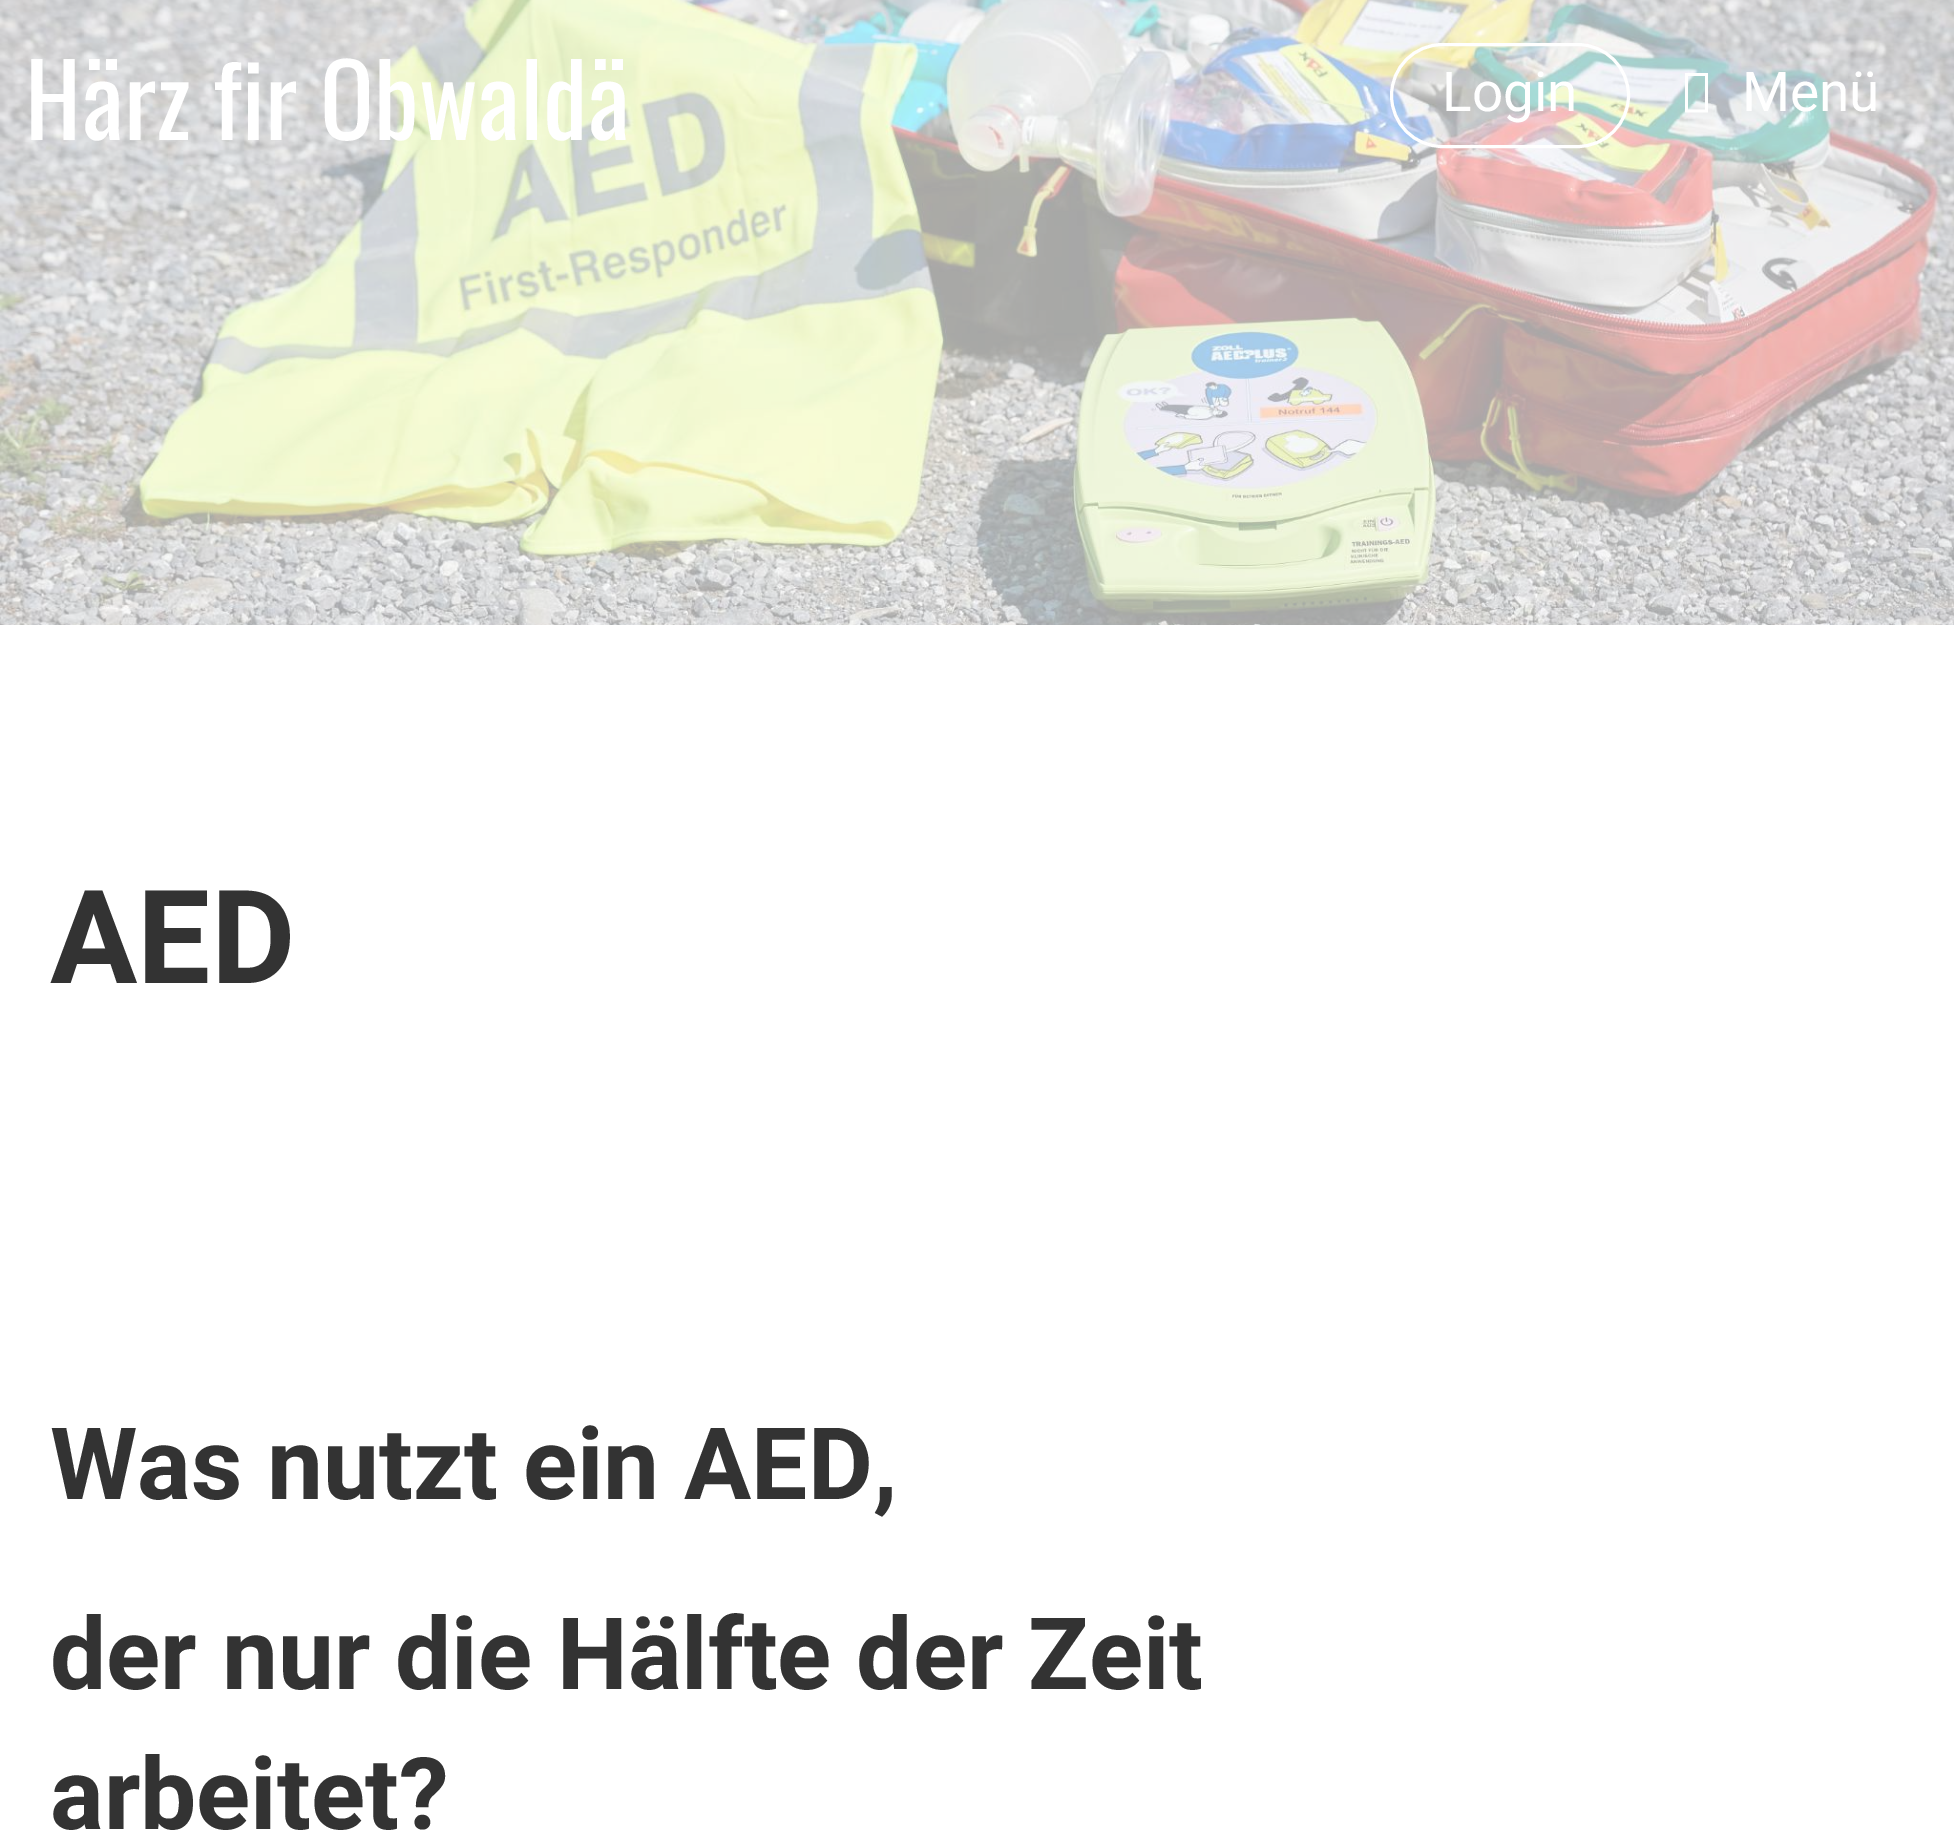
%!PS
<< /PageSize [1954 1832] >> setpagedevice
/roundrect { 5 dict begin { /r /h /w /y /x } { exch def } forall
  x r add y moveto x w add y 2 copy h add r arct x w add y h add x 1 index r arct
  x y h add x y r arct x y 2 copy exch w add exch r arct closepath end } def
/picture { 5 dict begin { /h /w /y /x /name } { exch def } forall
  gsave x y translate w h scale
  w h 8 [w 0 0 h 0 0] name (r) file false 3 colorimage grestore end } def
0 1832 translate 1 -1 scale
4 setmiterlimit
1 setgray
0 0 1954 1832 rectfill
(img1.rgb) 0 0 1954 625 picture
/Oswald-Regular [100 0 0 -100 0 0] selectfont
25 140 moveto (Härz fir Obwaldä) show
3 setlinewidth
1391.5 44.5 237 102 51 roundrect stroke
/Roboto-Regular [55 0 0 -55 0 0] selectfont
1442 111 moveto (Login) show
newpath 1685 112.5 moveto 1685 73 lineto 1708 73 lineto 1708 112.5 lineto closepath 1688 109.5 moveto 1705 109.5 lineto 1705 76 lineto 1688 76 lineto closepath fill
1742 111 moveto (Menü) show
/Roboto-Bold [130 0 0 -130 0 0] selectfont
0.2 setgray
50 983 moveto (AED) show
/Roboto-Bold [100 0 0 -100 0 0] selectfont
50 1499 moveto (Was nutzt ein AED,) show
50 1689 moveto (der nur die Hälfte der Zeit) show
50 1829 moveto (arbeitet?) show
showpage
